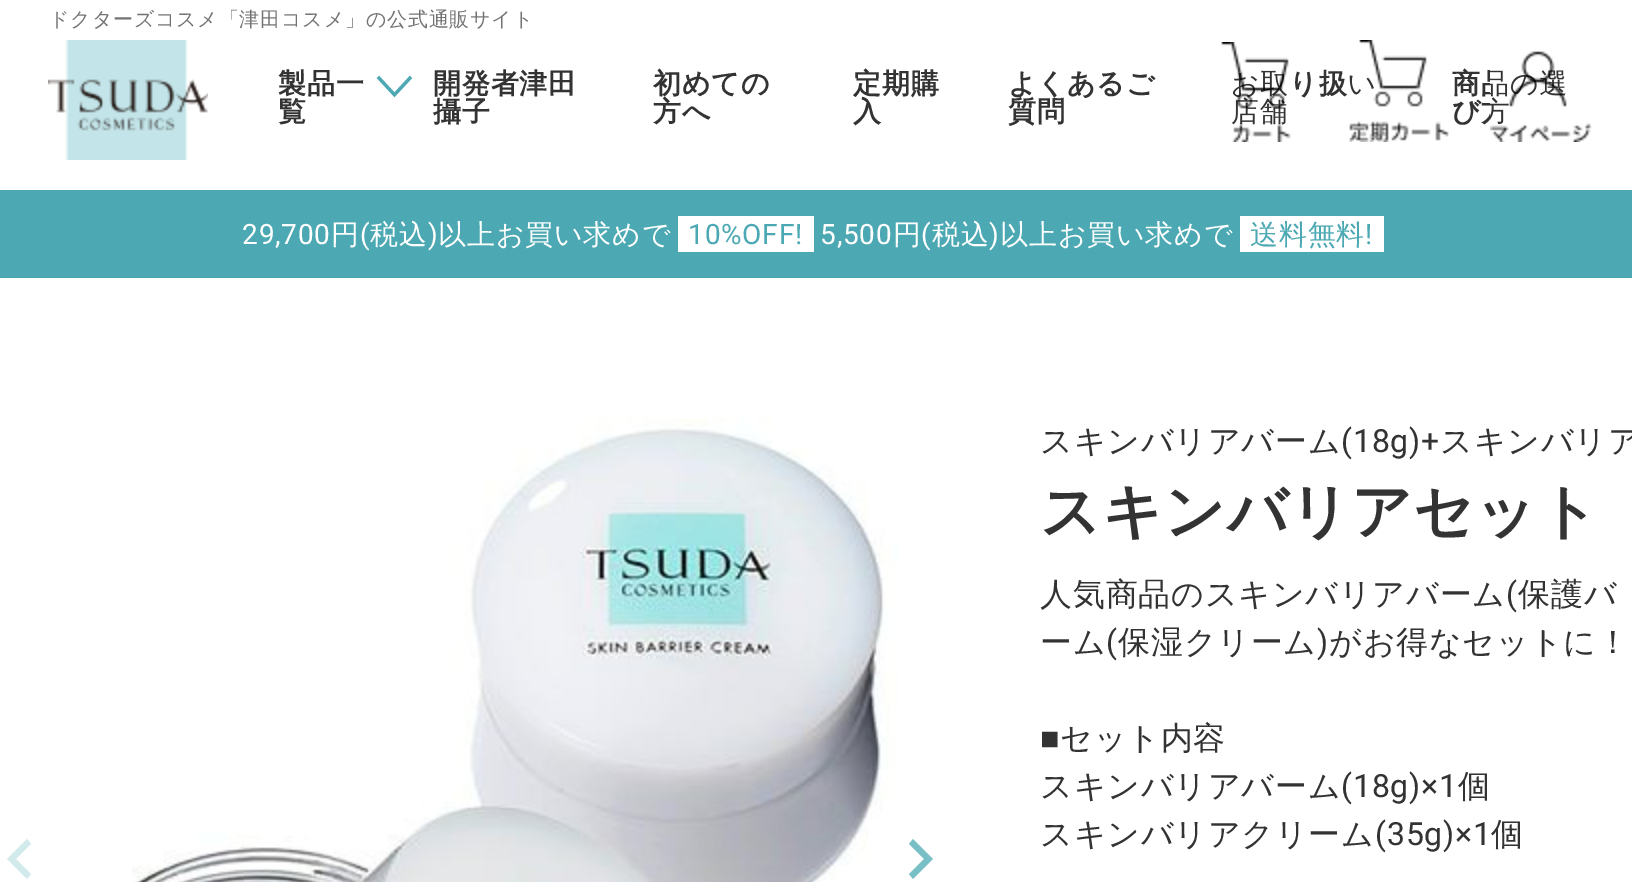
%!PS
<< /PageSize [1632 882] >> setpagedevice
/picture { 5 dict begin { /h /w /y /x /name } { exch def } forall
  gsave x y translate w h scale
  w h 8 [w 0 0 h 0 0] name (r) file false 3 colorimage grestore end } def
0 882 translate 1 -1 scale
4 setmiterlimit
1 setgray
0 0 1632 882 rectfill
/WenQuanYiZenHei-Medium [20 0 0 -20 0 0] selectfont
0.451 setgray
49 26 moveto 0.8 0 (ドクターズコスメ「津田コスメ」の公式通販サイト) ashow
(img1.rgb) 48 40 160 120 picture
/WenQuanYiZenHei-Bold [28 0 0 -28 0 0] selectfont
0.2 setgray
1231 93 moveto 0.8 0 (お取り扱い) ashow
1231 121 moveto 0.8 0 (店舗) ashow
(img2.rgb) 1221 42 70 100 picture
(img3.rgb) 1349 40 100 102 picture
1452 93 moveto 0.8 0 (商品の選) ashow
1452 121 moveto 0.8 0 (び方) ashow
(img4.rgb) 1490 51 102 91 picture
278 93 moveto 0.8 0 (製品一) ashow
(img5.rgb) 376 75 36 23 picture
278 121 moveto 0.8 0 (覧) ashow
433 93 moveto 0.8 0 (開発者津田) ashow
433 121 moveto 0.8 0 (攝子) ashow
653 93 moveto 0.8 0 (初めての) ashow
653 121 moveto 0.8 0 (方へ) ashow
853 93 moveto 0.8 0 (定期購) ashow
853 121 moveto 0.8 0 (入) ashow
1008 93 moveto 0.8 0 (よくあるご) ashow
1008 121 moveto 0.8 0 (質問) ashow
0.298 0.663 0.702 setrgbcolor
0 190 1632 88 rectfill
/Roboto-Regular [28 0 0 -28 0 0] selectfont
1 setgray
242 244 moveto 0.8 0 (29,700) ashow
/WenQuanYiZenHei-Medium [28 0 0 -28 0 0] selectfont
331 244 moveto 0.8 0 (円) ashow
/Roboto-Regular [28 0 0 -28 0 0] selectfont
360 244 moveto 0.8 0 (\() ashow
/WenQuanYiZenHei-Medium [28 0 0 -28 0 0] selectfont
370 244 moveto 0.8 0 (税込) ashow
/Roboto-Regular [28 0 0 -28 0 0] selectfont
428 244 moveto 0.8 0 (\)) ashow
/WenQuanYiZenHei-Medium [28 0 0 -28 0 0] selectfont
438 244 moveto 0.8 0 (以上お買い求めで) ashow
678 216 136 36 rectfill
/Roboto-Regular [28 0 0 -28 0 0] selectfont
0.298 0.663 0.702 setrgbcolor
688 244 moveto 0.8 0 (10%OFF!) ashow
1 setgray
820 244 moveto 0.8 0 (5,500) ashow
/WenQuanYiZenHei-Medium [28 0 0 -28 0 0] selectfont
893 244 moveto 0.8 0 (円) ashow
/Roboto-Regular [28 0 0 -28 0 0] selectfont
921 244 moveto 0.8 0 (\() ashow
/WenQuanYiZenHei-Medium [28 0 0 -28 0 0] selectfont
932 244 moveto 0.8 0 (税込) ashow
/Roboto-Regular [28 0 0 -28 0 0] selectfont
989 244 moveto 0.8 0 (\)) ashow
/WenQuanYiZenHei-Medium [28 0 0 -28 0 0] selectfont
1000 244 moveto 0.8 0 (以上お買い求めで) ashow
1240 216 144 36 rectfill
0.298 0.663 0.702 setrgbcolor
1250 244 moveto 0.8 0 (送料無料) ashow
/Roboto-Regular [28 0 0 -28 0 0] selectfont
1365 244 moveto 0.8 0 (!) ashow
0.824 0.918 0.925 setrgbcolor
newpath 31 844 moveto 27 839 lineto 7 859 lineto 27 879 lineto 31 874 lineto 16 859 lineto closepath fill
(img6.rgb) 132 418 767 464 picture
0.475 0.749 0.776 setrgbcolor
newpath 913 839 moveto 909 844 lineto 924 859 lineto 909 874 lineto 913 879 lineto 933 859 lineto closepath fill
/WenQuanYiZenHei-Medium [32 0 0 -32 0 0] selectfont
0.2 setgray
1040 452 moveto 0.8 0 (スキンバリアバーム) ashow
/Roboto-Regular [32 0 0 -32 0 0] selectfont
1341 452 moveto 0.8 0 (\(18g\)+) ashow
/WenQuanYiZenHei-Medium [32 0 0 -32 0 0] selectfont
1440 452 moveto 0.8 0 (スキンバリア) ashow
/WenQuanYiZenHei-Bold [60 0 0 -60 0 0] selectfont
1040 532 moveto 0.8 0 (スキンバリアセット) ashow
/WenQuanYiZenHei-Medium [32 0 0 -32 0 0] selectfont
1040 605 moveto 0.8 0 (人気商品のスキンバリアバーム) ashow
/Roboto-Regular [32 0 0 -32 0 0] selectfont
1506 605 moveto 0.8 0 (\() ashow
/WenQuanYiZenHei-Medium [32 0 0 -32 0 0] selectfont
1518 605 moveto 0.8 0 (保護バ) ashow
1040 653 moveto 0.8 0 (ーム) ashow
/Roboto-Regular [32 0 0 -32 0 0] selectfont
1106 653 moveto 0.8 0 (\() ashow
/WenQuanYiZenHei-Medium [32 0 0 -32 0 0] selectfont
1118 653 moveto 0.8 0 (保湿クリーム) ashow
/Roboto-Regular [32 0 0 -32 0 0] selectfont
1317 653 moveto 0.8 0 (\)) ashow
/WenQuanYiZenHei-Medium [32 0 0 -32 0 0] selectfont
1329 653 moveto 0.8 0 (がお得なセットに！) ashow
/LiberationSans-Regular [32 0 0 -32 0 0] selectfont
1040 749 moveto 0.8 0 (■) ashow
/WenQuanYiZenHei-Medium [32 0 0 -32 0 0] selectfont
1060 749 moveto 0.8 0 (セット内容) ashow
1040 797 moveto 0.8 0 (スキンバリアバーム) ashow
/Roboto-Regular [32 0 0 -32 0 0] selectfont
1341 797 moveto 0.8 0 (\(18g\)×1) ashow
/WenQuanYiZenHei-Medium [32 0 0 -32 0 0] selectfont
1458 797 moveto 0.8 0 (個) ashow
1040 845 moveto 0.8 0 (スキンバリアクリーム) ashow
/Roboto-Regular [32 0 0 -32 0 0] selectfont
1375 845 moveto 0.8 0 (\(35g\)×1) ashow
/WenQuanYiZenHei-Medium [32 0 0 -32 0 0] selectfont
1491 845 moveto 0.8 0 (個) ashow
showpage
